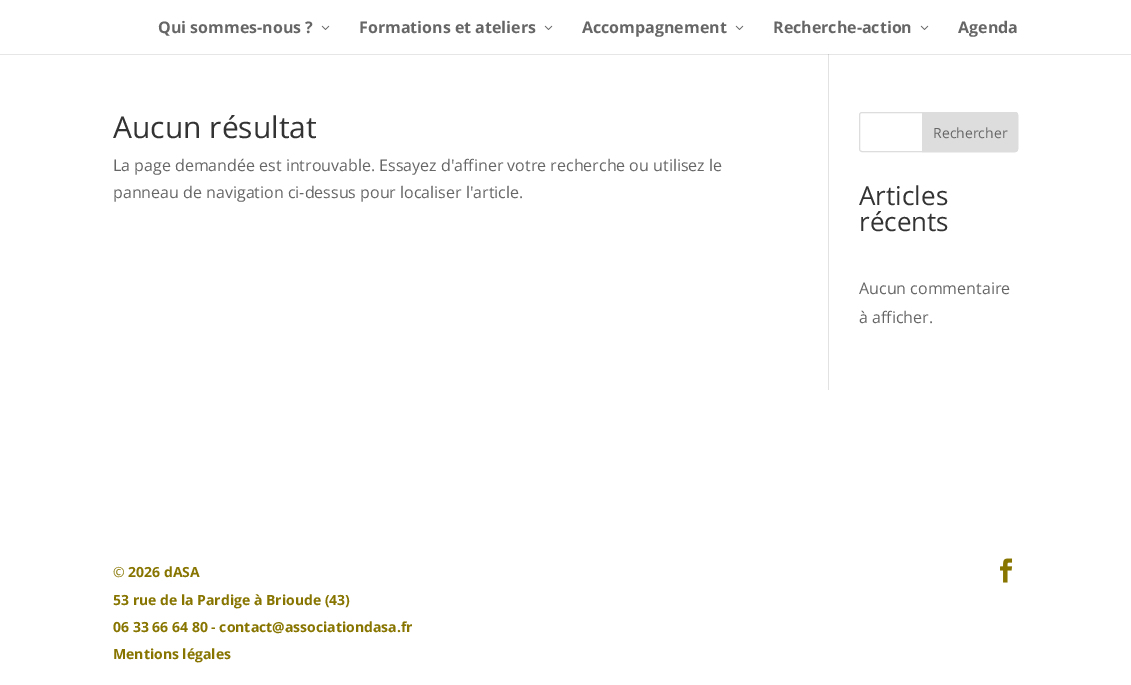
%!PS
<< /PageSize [1131 685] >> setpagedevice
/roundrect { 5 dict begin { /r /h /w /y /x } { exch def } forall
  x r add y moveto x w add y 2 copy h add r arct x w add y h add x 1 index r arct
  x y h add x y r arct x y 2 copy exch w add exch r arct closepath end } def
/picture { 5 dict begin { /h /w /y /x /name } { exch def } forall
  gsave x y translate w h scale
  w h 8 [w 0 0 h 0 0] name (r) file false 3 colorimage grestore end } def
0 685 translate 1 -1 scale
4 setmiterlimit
1 setgray
0 0 1131 685 rectfill
0.902 setgray
0 54 1131 1 rectfill
/OpenSans-Bold [16 0 0 -16 0 0] selectfont
0.4 setgray
158 33 moveto (Qui sommes-nous ?) show
(img1.rgb) 321 25 9 5 picture
359 33 moveto (Formations et ateliers) show
(img1.rgb) 544 25 9 5 picture
582 33 moveto (Accompagnement) show
(img1.rgb) 735 25 9 5 picture
773 33 moveto (Recherche-action) show
(img1.rgb) 920 25 9 5 picture
958 33 moveto (Agenda) show
0.886 setgray
828 54 1 336 rectfill
0.796 setgray
828 54 1 1 rectfill
/OpenSans-Regular [30 0 0 -30 0 0] selectfont
0.2 setgray
113 138 moveto (Aucun résultat) show
/OpenSans-Regular [16 0 0 -16 0 0] selectfont
0.4 setgray
113 171 moveto (La page demandée est introuvable. Essayez d'affiner votre recherche ou utilisez le) show
113 198 moveto (panneau de navigation ci-dessus pour localiser l'article.) show
0.867 setgray
859.5 112.5 158 39 2.5 roundrect stroke
newpath 922.5 112.5 moveto 1015 112.5 lineto 1016.5 112.5 1017.5 113.5 1017.5 115 curveto 1017.5 149 lineto 1017.5 150.5 1016.5 151.5 1015 151.5 curveto 922.5 151.5 lineto closepath gsave fill grestore
stroke
/OpenSans-Regular [14 0 0 -14 0 0] selectfont
0.4 setgray
933 138 moveto (Rechercher) show
/OpenSans-Regular [26 0 0 -26 0 0] selectfont
0.2 setgray
859 205 moveto (Articles) show
859 231 moveto (récents) show
/OpenSans-Regular [16 0 0 -16 0 0] selectfont
0.4 setgray
859 294 moveto (Aucun commentaire) show
859 323 moveto (à afficher.) show
/OpenSans-Regular [14 0 0 -14 0 0] selectfont
0.529 0.459 0 setrgbcolor
113 577 moveto (©) show
/OpenSans-Bold [14 0 0 -14 0 0] selectfont
128 577 moveto (2026 dASA) show
113 605 moveto (53 rue de la Pardige à Brioude \(43\)) show
113 632 moveto (06 33 66 64 80 - contact@associationdasa.fr) show
113 659 moveto (Mentions légales) show
(img2.rgb) 1000 558 13 25 picture
showpage
